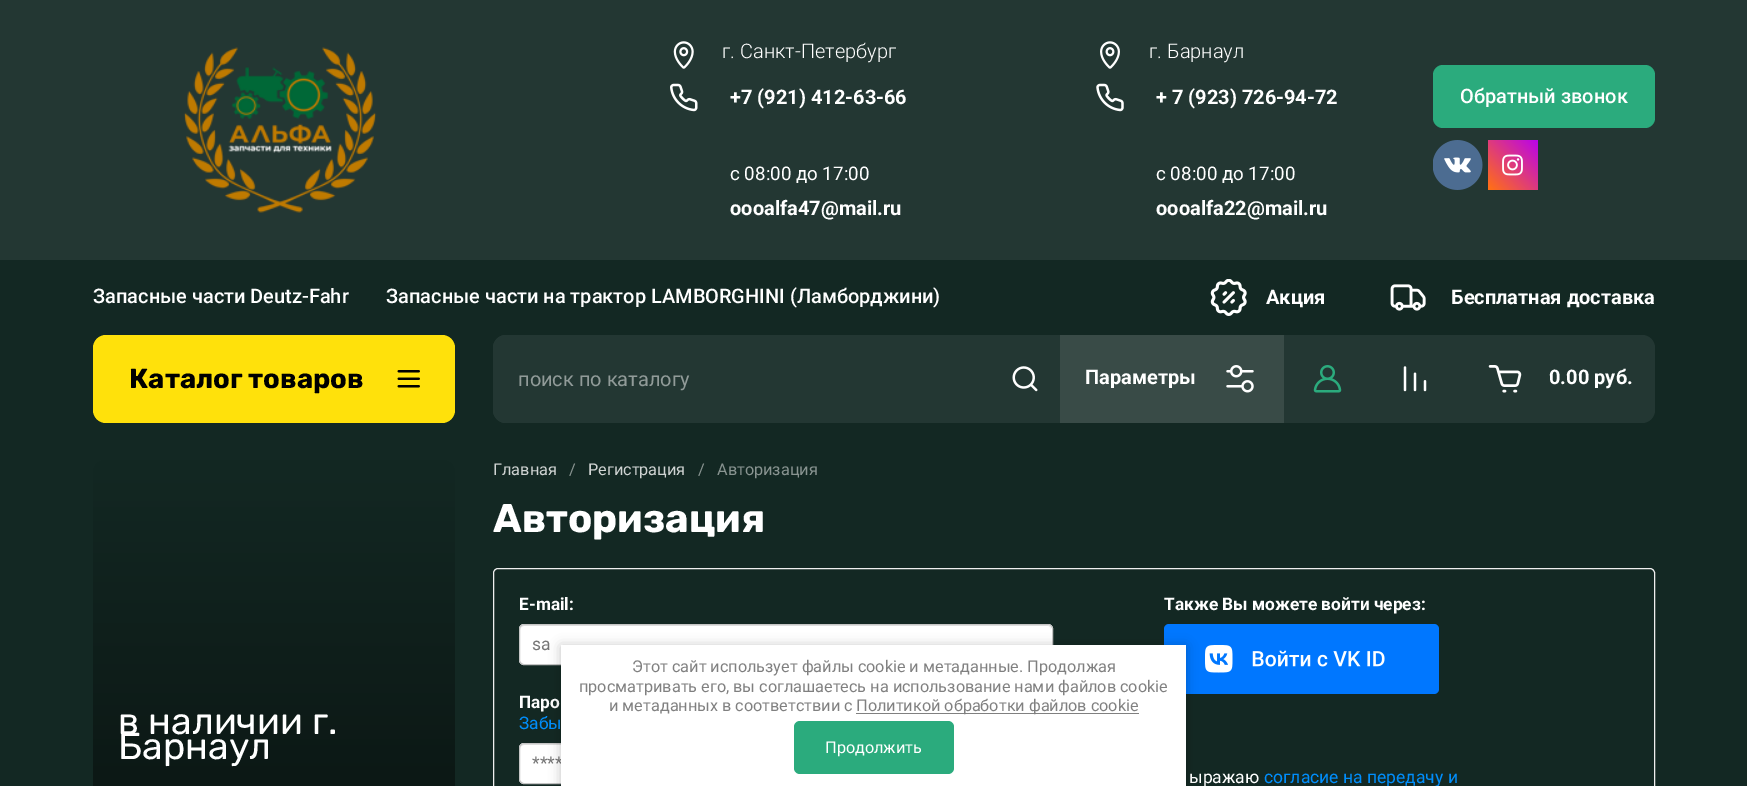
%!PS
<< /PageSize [1747 786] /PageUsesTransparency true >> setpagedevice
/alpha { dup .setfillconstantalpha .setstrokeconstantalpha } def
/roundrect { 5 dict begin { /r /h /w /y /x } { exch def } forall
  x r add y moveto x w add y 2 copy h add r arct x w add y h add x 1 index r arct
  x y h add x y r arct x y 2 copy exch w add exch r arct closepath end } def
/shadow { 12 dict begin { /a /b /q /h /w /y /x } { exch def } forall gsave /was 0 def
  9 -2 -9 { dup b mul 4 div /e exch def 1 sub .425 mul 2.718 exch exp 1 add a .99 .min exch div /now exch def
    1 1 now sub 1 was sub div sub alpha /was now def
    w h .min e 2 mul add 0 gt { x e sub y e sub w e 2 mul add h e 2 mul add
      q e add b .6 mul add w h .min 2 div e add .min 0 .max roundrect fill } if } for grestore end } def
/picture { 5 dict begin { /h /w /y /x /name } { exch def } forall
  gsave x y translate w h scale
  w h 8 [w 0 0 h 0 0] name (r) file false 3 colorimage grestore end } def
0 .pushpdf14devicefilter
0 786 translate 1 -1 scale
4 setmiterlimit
0.075 0.157 0.137 setrgbcolor
0 0 1747 786 rectfill
0.137 0.216 0.2 setrgbcolor
0 0 1747 260 rectfill
(img1.rgb) 183 47 194 166 picture
(img2.rgb) 673 41 21 28 picture
/Roboto-Light [20 0 0 -20 0 0] selectfont
1 setgray
722 58 moveto (г. Санкт-Петербург) show
(img3.rgb) 670 83 28 29 picture
/Roboto-Bold [20 0 0 -20 0 0] selectfont
730 104 moveto (+7 \(921\) 412-63-66) show
/Roboto-Regular [18.75 0 0 -18.75 0 0] selectfont
730 180 moveto (c 08:00 до 17:00) show
/Roboto-Bold [20 0 0 -20 0 0] selectfont
730 215 moveto (oooalfa47@mail.ru) show
(img4.rgb) 1100 41 20 28 picture
/Roboto-Light [20 0 0 -20 0 0] selectfont
1149 58 moveto (г. Барнаул) show
(img5.rgb) 1096 83 28 29 picture
/Roboto-Bold [20 0 0 -20 0 0] selectfont
1156 104 moveto (+ 7 \(923\) 726-94-72) show
/Roboto-Regular [18.75 0 0 -18.75 0 0] selectfont
1156 180 moveto (c 08:00 до 17:00) show
/Roboto-Bold [20 0 0 -20 0 0] selectfont
1156 215 moveto (oooalfa22@mail.ru) show
0.169 0.671 0.49 setrgbcolor
1433 65 222 63 10 roundrect fill
/Roboto-Medium [20 0 0 -20 0 0] selectfont
1 setgray
1460 103 moveto (Обратный звонок) show
(img6.rgb) 1433 140 50 50 picture
(img7.rgb) 1488 140 50 50 picture
93 303 moveto (Запасные части Deutz-Fahr) show
386 303 moveto (Запасные части на трактор LAMBORGHINI \(Ламборджини\)) show
(img8.rgb) 1210 279 37 37 picture
/Roboto-Bold [20 0 0 -20 0 0] selectfont
1266 304 moveto (Акция) show
(img9.rgb) 1390 284 36 27 picture
1451 304 moveto (Бесплатная доставка) show
1 0.882 0.043 setrgbcolor
93 335 362 88 13 roundrect fill
/Rubik-Bold [27.5 0 0 -27.5 0 0] selectfont
0 setgray
129 388 moveto (Каталог товаров) show
(img10.rgb) 397 370 23 18 picture
0.137 0.216 0.2 setrgbcolor
493 335 1162 88 13 roundrect fill
newpath 506 335 moveto 1060 335 lineto 1060 423 lineto 506 423 lineto 499 423 493 417 493 410 curveto 493 348 lineto 493 341 499 335 506 335 curveto closepath fill
/Roboto-Regular [20 0 0 -20 0 0] selectfont
0.569 0.608 0.6 setrgbcolor
518 386 moveto (поиск по каталогу) show
(img11.rgb) 1012 366 26 26 picture
0.224 0.294 0.278 setrgbcolor
1060 335 224 88 rectfill
/Roboto-Bold [20 0 0 -20 0 0] selectfont
1 setgray
1085 384 moveto (Параметры) show
(img12.rgb) 1226 365 28 28 picture
(img13.rgb) 1313 365 29 28 picture
(img14.rgb) 1403 366 24 26 picture
(img15.rgb) 1488 365 34 28 picture
1549 384 moveto (0.00 руб.) show
gsave 93 460 362 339 13 roundrect clip newpath
<< /ShadingType 2 /ColorSpace /DeviceRGB /Coords [274 460 274 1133] /Extend [true true] /Function << /FunctionType 2 /Domain [0 1] /C0 [0.075 0.157 0.137] /C1 [0.016 0.031 0.027] /N 1 >> >> shfill grestore
/Rubik-Regular [37.5 0 0 -37.5 0 0] selectfont
118 734 moveto (в наличии г.) show
118 759 moveto (Барнаул) show
/Roboto-Regular [16.25 0 0 -16.25 0 0] selectfont
0.816 0.831 0.827 setrgbcolor
493 475 moveto (Главная) show
0.537 0.58 0.569 setrgbcolor
569 475 moveto (/) show
0.816 0.831 0.827 setrgbcolor
588 475 moveto (Регистрация) show
0.537 0.58 0.569 setrgbcolor
698 475 moveto (/) show
717 475 moveto (Авторизация) show
/Rubik-Bold [40 0 0 -40 0 0] selectfont
1 setgray
493 532 moveto (Авторизация) show
0.937 setgray
493.5 568.5 1161 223 4.5 roundrect stroke
/Roboto-Bold [17.3 0 0 -17.3 0 0] selectfont
1 setgray
519 610 moveto (E-mail:) show
519 624 534 41 5 roundrect fill
0.902 setgray
newpath 524 626 moveto 1048 626 lineto 1050 626 1051 628 1051 630 curveto 1051 629 lineto 1051 627 1049 625 1047 625 curveto 524 625 lineto 522 625 520 627 520 629 curveto 520 630 lineto 520 628 522 626 524 626 curveto closepath fill
0.773 setgray
519.5 624.5 533 40 4.5 roundrect stroke
/Roboto-Regular [17.5 0 0 -17.5 0 0] selectfont
0.459 setgray
532 650 moveto (sa) show
/Roboto-Bold [17.3 0 0 -17.3 0 0] selectfont
1 setgray
519 708 moveto (Паро) show
/Roboto-Regular [17.3 0 0 -17.3 0 0] selectfont
0 0.557 0.988 setrgbcolor
519 729 moveto (Забы) show
1 setgray
519 743 534 41 5 roundrect fill
0.902 setgray
newpath 524 745 moveto 1048 745 lineto 1050 745 1051 747 1051 749 curveto 1051 748 lineto 1051 746 1049 744 1047 744 curveto 524 744 lineto 522 744 520 746 520 748 curveto 520 749 lineto 520 747 522 745 524 745 curveto closepath fill
0.773 setgray
519.5 743.5 533 40 4.5 roundrect stroke
/Roboto-Regular [17.5 0 0 -17.5 0 0] selectfont
0.459 setgray
532 769 moveto (****) show
/Roboto-Bold [17.3 0 0 -17.3 0 0] selectfont
1 setgray
1164 610 moveto (Также Вы можете войти через:) show
0 0.467 1 setrgbcolor
1164 624 275 70 5 roundrect fill
(img16.rgb) 1205 645 180 28 picture
/Roboto-Regular [17.5 0 0 -17.5 0 0] selectfont
1 setgray
1189 783 moveto (ыражаю) show
0 0.557 0.988 setrgbcolor
1264 783 moveto (согласие на передачу и) show
0 setgray
561 646 625 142 0 6 0.23 shadow
1 setgray
561 645 625 141 rectfill
/Roboto-Regular [16.25 0 0 -16.25 0 0] selectfont
0.502 setgray
632 672 moveto (Этот сайт использует файлы cookie и метаданные. Продолжая) show
579 692 moveto (просматривать его, вы соглашаетесь на использование нами файлов cookie) show
609 711 moveto (и метаданных в соответствии с) show
856 713 283 1 rectfill
856 711 moveto (Политикой обработки файлов cookie) show
0.169 0.671 0.49 setrgbcolor
794 721 160 53 6 roundrect fill
1 setgray
825 753 moveto (Продолжить) show
.poppdf14devicefilter showpage
